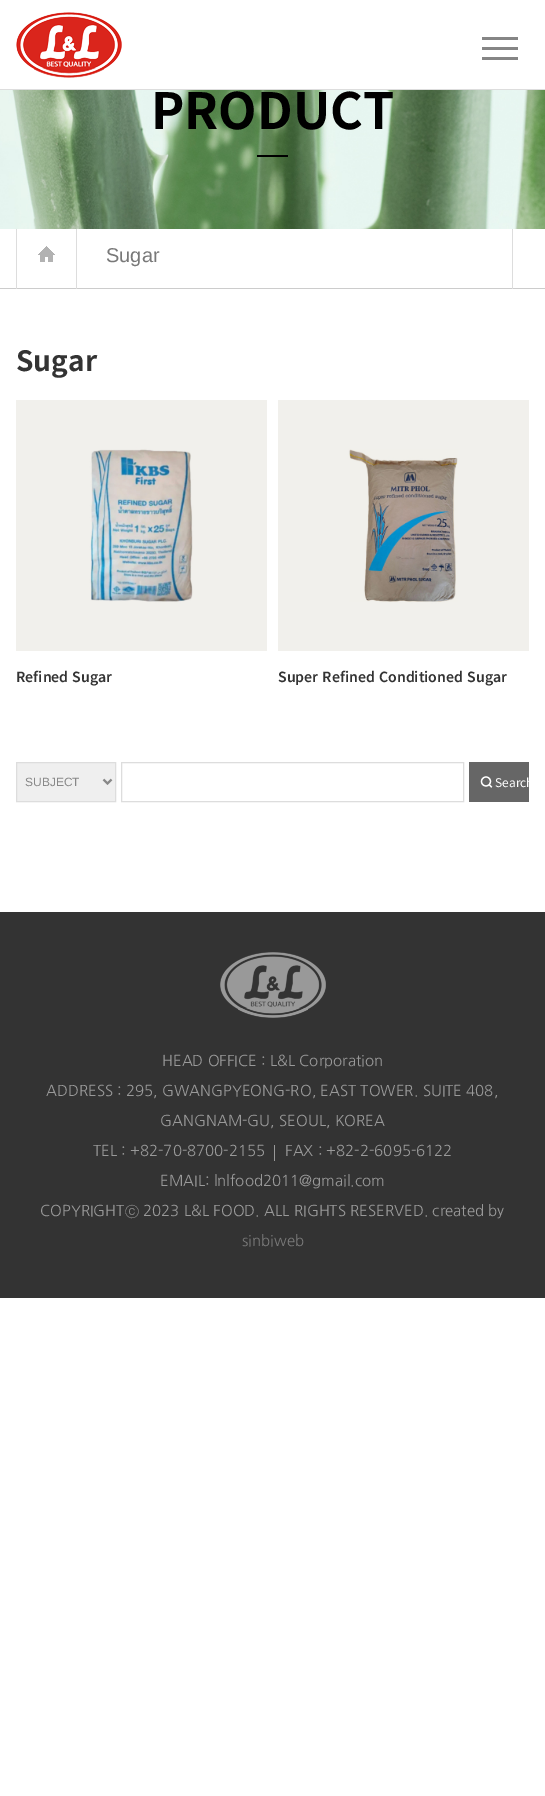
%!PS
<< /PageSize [545 1796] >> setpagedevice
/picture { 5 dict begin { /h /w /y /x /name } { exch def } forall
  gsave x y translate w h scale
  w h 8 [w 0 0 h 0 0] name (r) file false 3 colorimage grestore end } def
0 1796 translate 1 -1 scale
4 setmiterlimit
1 setgray
0 0 545 1796 rectfill
0.867 setgray
0 89 545 1 rectfill
(img1.rgb) 16 12 106 66 picture
0.522 setgray
482 47 36 3 rectfill
482 37 36 3 rectfill
482 57 36 3 rectfill
(img2.rgb) 0 90 545 139 picture
/NotoSansKR-Bold [50 0 0 -50 0 0] selectfont
0 setgray
151 129 moveto (PRODUCT) show
257 155 31 2 rectfill
0.8 setgray
0 288 545 1 rectfill
0.867 setgray
76 229 1 60 rectfill
16 229 1 60 rectfill
(img3.rgb) 38 246 17 16 picture
512 229 1 60 rectfill
/LiberationSans-Regular [20 0 0 -20 0 0] selectfont
0.475 setgray
106 262 moveto (Sugar) show
/NotoSansKR-Bold [28 0 0 -28 0 0] selectfont
0.2 setgray
16 371 moveto (Sugar) show
(img4.rgb) 16 400 251 251 picture
/NotoSansKR-SemiBold [14 0 0 -14 0 0] selectfont
16 682 moveto 1 0 32 (Refined Sugar) widthshow
(img5.rgb) 278 400 251 251 picture
278 682 moveto 1 0 32 (Super Refined Conditioned Sugar) widthshow
0.937 setgray
newpath 16.5 762.5 moveto 115.5 762.5 lineto 115.5 801.5 lineto 16.5 801.5 lineto closepath gsave fill grestore
0.867 setgray
stroke
0.533 setgray
2 setlinewidth
newpath 103.5 779.5 moveto 107.5 783.5 lineto 111.5 779.5 lineto stroke
/LiberationSans-Regular [12 0 0 -12 0 0] selectfont
25 786 moveto (SUBJECT) show
0.867 setgray
1 setlinewidth
121.5 762.5 342 39 rectstroke
0.4 setgray
469 762 60 40 rectfill
(img6.rgb) 480 776 13 12 picture
/NotoSansKR-Regular [12 0 0 -12 0 0] selectfont
1 setgray
495 787 moveto (Search) show
0.2 setgray
0 912 545 386 rectfill
(img7.rgb) 220 952 106 66 picture
/NanumGothic-Regular [15 0 0 -15 0 0] selectfont
0.6 setgray
162 1066 moveto (HEAD OFFICE : L&L Corporation) show
46 1096 moveto (ADDRESS : 295, GWANGPYEONG-RO, EAST TOWER. SUITE 408,) show
160 1126 moveto (GANGNAM-GU, SEOUL, KOREA) show
93 1156 moveto (TEL : +82-70-8700-2155) show
274 1145 1 16 rectfill
285 1156 moveto (FAX : +82-2-6095-6122) show
160 1186 moveto (EMAIL: lnlfood2011@gmail.com) show
40 1216 moveto (COPYRIGHT) show
/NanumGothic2-Regular [15 0 0 -15 0 0] selectfont
125 1216 moveto (ⓒ) show
/NanumGothic-Regular [15 0 0 -15 0 0] selectfont
143 1216 moveto (2023 L&L FOOD. ALL RIGHTS RESERVED. created by) show
0.475 setgray
242 1246 moveto (sinbiweb) show
showpage
